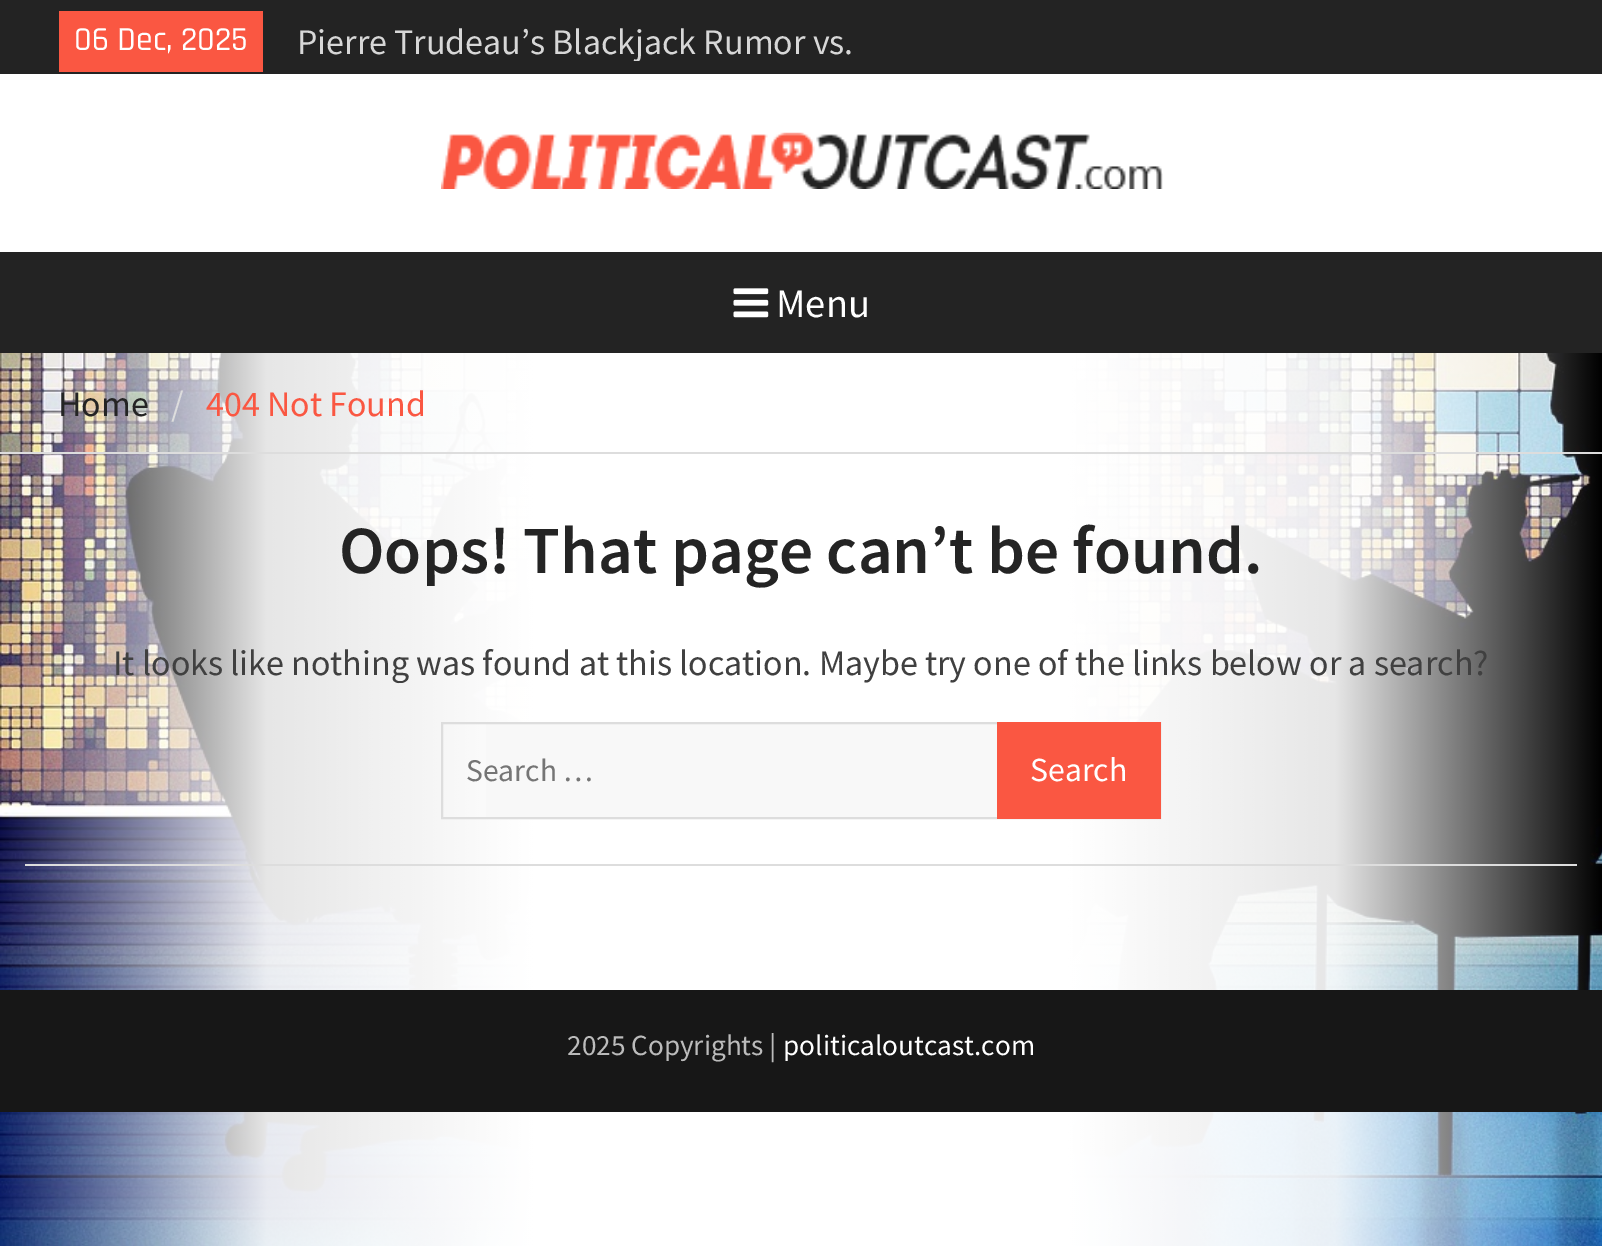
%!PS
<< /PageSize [1602 1246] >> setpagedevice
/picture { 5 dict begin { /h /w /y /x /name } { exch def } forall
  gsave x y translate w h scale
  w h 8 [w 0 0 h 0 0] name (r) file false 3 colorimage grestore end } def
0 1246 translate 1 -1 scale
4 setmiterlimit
1 setgray
0 0 1602 1246 rectfill
(img1.rgb) 0 353 1602 893 picture
0.137 setgray
0 0 1602 74 rectfill
0.98 0.341 0.259 setrgbcolor
59 11 204 61 rectfill
/Rajdhani-Medium [33.75 0 0 -33.75 0 0] selectfont
1 setgray
74 50 moveto (06 Dec, 2025) show
gsave
297 14 596 47 rectclip
/SourceSansPro-Regular [36 0 0 -36 0 0] selectfont
0.843 setgray
297 54 moveto (Pierre Trudeau’s Blackjack Rumor vs.) show
grestore
(img2.rgb) 441 132 722 57 picture
0.137 setgray
0 252 1602 101 rectfill
(img3.rgb) 733 288 36 30 picture
/SourceSansPro-Regular [40.5 0 0 -40.5 0 0] selectfont
1 setgray
776 317 moveto (Menu) show
0.867 setgray
0 452 1602 2 rectfill
/SourceSansPro-Regular [36 0 0 -36 0 0] selectfont
0.141 setgray
58 416 moveto (Home) show
0.867 setgray
171 416 moveto (/) show
0.98 0.341 0.259 setrgbcolor
206 416 moveto (404 Not Found) show
0.867 setgray
25 864 1552 2 rectfill
/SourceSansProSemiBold-SemiBold [67.5 0 0 -67.5 0 0] selectfont
0.141 setgray
339 573 moveto (Oops! That page can’t be found.) show
/SourceSansPro-Regular [36 0 0 -36 0 0] selectfont
0.251 setgray
113 675 moveto (It looks like nothing was found at this location. Maybe try one of the links below or a search?) show
0.973 setgray
486 724 511 93 rectfill
0.867 setgray
2 setlinewidth
442 723 718 95 rectstroke
/SourceSansPro-Regular [31.5 0 0 -31.5 0 0] selectfont
0.459 setgray
466 781 moveto (Search …) show
0.98 0.341 0.259 setrgbcolor
997 722 164 97 rectfill
/SourceSansPro-Regular [33.75 0 0 -33.75 0 0] selectfont
1 setgray
1030 781 moveto (Search) show
0.09 setgray
0 990 1602 122 rectfill
/SourceSansPro-Regular [29.25 0 0 -29.25 0 0] selectfont
0.733 setgray
567 1055 moveto (2025 Copyrights |) show
1 setgray
783 1055 moveto (politicaloutcast.com) show
showpage
